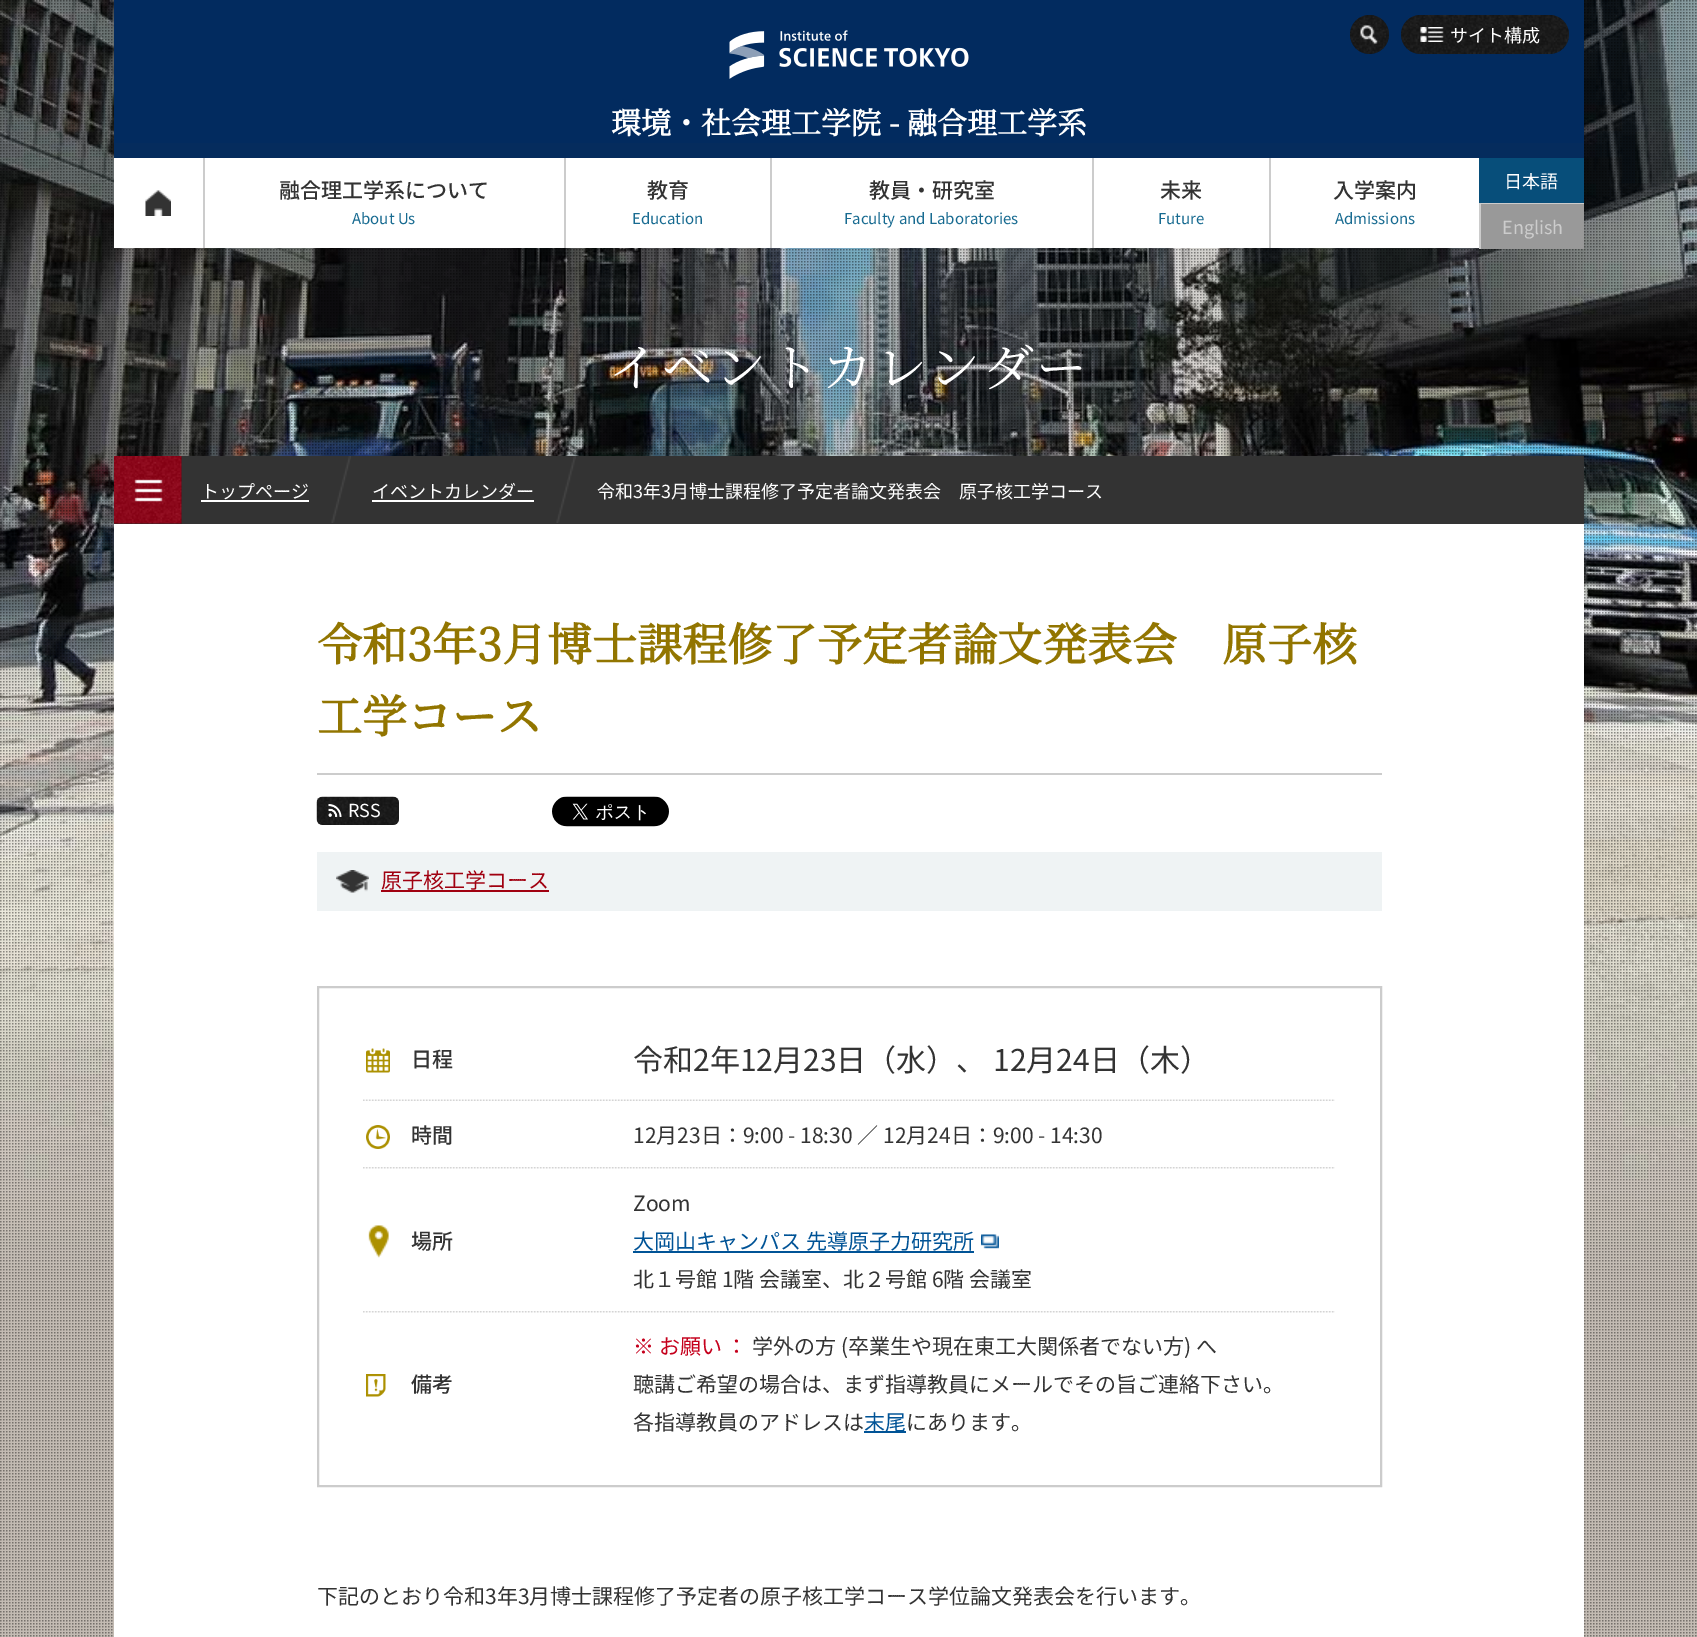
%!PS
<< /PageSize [1697 1637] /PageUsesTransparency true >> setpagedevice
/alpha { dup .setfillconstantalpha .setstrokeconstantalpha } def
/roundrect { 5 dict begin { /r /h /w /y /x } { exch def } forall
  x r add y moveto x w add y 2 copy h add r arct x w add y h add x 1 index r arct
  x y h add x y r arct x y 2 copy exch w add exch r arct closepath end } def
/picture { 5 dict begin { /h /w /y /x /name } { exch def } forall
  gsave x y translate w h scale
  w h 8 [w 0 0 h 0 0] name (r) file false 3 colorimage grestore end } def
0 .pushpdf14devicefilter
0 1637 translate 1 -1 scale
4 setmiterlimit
1 setgray
0 0 1697 1637 rectfill
(img1.rgb) 0 0 1697 1637 picture
(img2.rgb) 0 0 1697 1637 picture
0.2 setgray
114 456 1470 68 rectfill
(img3.rgb) 114 456 68 68 picture
0.15 alpha
0 setgray
114 456 68 68 rectfill
1 alpha
(img4.rgb) 134 479 29 23 picture
0.008 0.169 0.373 setrgbcolor
114 0 1470 143 rectfill
(img5.rgb) 1350 15 39 39 picture
0.5 alpha
0 setgray
newpath 1369.5 34.5 19.5 0 360 arc closepath fill
1 alpha
(img6.rgb) 1360 25 18 19 picture
(img7.rgb) 1401 15 168 39 picture
0.5 alpha
1401 15 168 39 19.5 roundrect fill
1 alpha
(img8.rgb) 1420 27 24 15 picture
/NotoSansJP-Regular [18 0 0 -18 0 0] selectfont
1 setgray
1450 42 moveto (サイト構成) show
114 158 89 90 rectfill
(img9.rgb) 145 190 26 26 picture
205 158 359 90 rectfill
0.8 setgray
203 158 2 90 rectfill
/NotoSansJP-Medium [21 0 0 -21 0 0] selectfont
0.2 setgray
279 198 moveto (融合理工学系について) show
/NotoSansJP-Regular [15 0 0 -15 0 0] selectfont
0.094 0.42 0.569 setrgbcolor
352 224 moveto (About Us) show
1 setgray
566 158 204 90 rectfill
0.8 setgray
564 158 2 90 rectfill
/NotoSansJP-Medium [21 0 0 -21 0 0] selectfont
0.2 setgray
647 198 moveto (教育) show
/NotoSansJP-Regular [15 0 0 -15 0 0] selectfont
0.094 0.42 0.569 setrgbcolor
632 224 moveto (Education) show
1 setgray
772 158 320 90 rectfill
0.8 setgray
770 158 2 90 rectfill
/NotoSansJP-Medium [21 0 0 -21 0 0] selectfont
0.2 setgray
869 198 moveto (教員・研究室) show
/NotoSansJP-Regular [15 0 0 -15 0 0] selectfont
0.094 0.42 0.569 setrgbcolor
844 224 moveto (Faculty and Laboratories) show
1 setgray
1094 158 175 90 rectfill
0.8 setgray
1092 158 2 90 rectfill
/NotoSansJP-Medium [21 0 0 -21 0 0] selectfont
0.2 setgray
1160 198 moveto (未来) show
/NotoSansJP-Regular [15 0 0 -15 0 0] selectfont
0.094 0.42 0.569 setrgbcolor
1158 224 moveto (Future) show
1 setgray
1271 158 208 90 rectfill
0.8 setgray
1269 158 2 90 rectfill
/NotoSansJP-Medium [21 0 0 -21 0 0] selectfont
0.2 setgray
1333 198 moveto (入学案内) show
/NotoSansJP-Regular [15 0 0 -15 0 0] selectfont
0.094 0.42 0.569 setrgbcolor
1335 224 moveto (Admissions) show
0.02 0.173 0.365 setrgbcolor
114 143 1470 15 rectfill
0.8 setgray
1479 203 105 1 rectfill
0.027 0.306 0.478 setrgbcolor
1479 158 105 45 rectfill
/NotoSansJP-Regular [18 0 0 -18 0 0] selectfont
1 setgray
1504 188 moveto (日本語) show
0.6 setgray
1481 204 103 45 rectfill
0.8 setgray
1479 204 2 45 rectfill
1502 234 moveto (English) show
(img10.rgb) 729 30 240 49 picture
/NotoSerifJP-Bold [30 0 0 -30 0 0] selectfont
1 setgray
611 134 moveto (環境・社会理工学院 - 融合理工学系) show
/NotoSerifJP-ExtraLight [51 0 0 -51 0 0] selectfont
608 386 moveto 2.5 0 (イベントカレンダー) ashow
114 524 1470 1113 rectfill
0.8 setgray
317 773 1065 2 rectfill
/NotoSerifJP-Bold [45 0 0 -45 0 0] selectfont
0.573 0.459 0 setrgbcolor
317 661 moveto (令和3年3月博士課程修了予定者論文発表会　原子核) show
317 733 moveto (工学コース) show
(img11.rgb) 316 796 83 29 picture
0.5 alpha
0 setgray
317 797 82 28 6 roundrect fill
1 alpha
(img12.rgb) 328 804 14 13 picture
/NotoSansJP-Regular [18 0 0 -18 0 0] selectfont
1 setgray
348 817 moveto (RSS) show
(img13.rgb) 552 796 117 31 picture
0.937 0.953 0.957 setrgbcolor
317 852 1065 59 rectfill
(img14.rgb) 336 870 33 23 picture
/NotoSansJP-Regular [21 0 0 -21 0 0] selectfont
0.627 0 0.063 setrgbcolor
381 888 moveto (原子核工学コース) show
381 890 168 2 rectfill
0.8 setgray
2 setlinewidth
318 987 1063 499 rectstroke
(img15.rgb) 363 1099 972 2 picture
(img16.rgb) 366 1048 24 25 picture
/NotoSansJP-Medium [21 0 0 -21 0 0] selectfont
0.2 setgray
411 1067 moveto (日程) show
/NotoSansJP-Regular [30 0 0 -30 0 0] selectfont
633 1071 moveto (令和2年12月23日（水）、 12月24日（木）) show
(img17.rgb) 363 1167 972 2 picture
(img18.rgb) 366 1125 24 24 picture
/NotoSansJP-Medium [21 0 0 -21 0 0] selectfont
411 1143 moveto (時間) show
/NotoSansJP-Regular [21 0 0 -21 0 0] selectfont
633 1143 moveto (12月23日：9:00 - 18:30 ／ 12月24日：9:00 - 14:30) show
(img17.rgb) 363 1311 972 2 picture
(img19.rgb) 368 1225 21 33 picture
/NotoSansJP-Medium [21 0 0 -21 0 0] selectfont
411 1249 moveto (場所) show
/NotoSansJP-Regular [21 0 0 -21 0 0] selectfont
633 1211 moveto (Zoom) show
0 0.325 0.588 setrgbcolor
633 1249 moveto (大岡山キャンパス 先導原子力研究所) show
633 1251 341 2 rectfill
(img20.rgb) 981 1234 18 15 picture
0.2 setgray
633 1287 moveto (北１号館 1階 会議室、北２号館 6階 会議室) show
(img21.rgb) 366 1374 20 23 picture
/NotoSansJP-Medium [21 0 0 -21 0 0] selectfont
411 1392 moveto (備考) show
/NotoSansJP-Regular [21 0 0 -21 0 0] selectfont
0.773 0 0.11 setrgbcolor
633 1354 moveto (※ お願い ：) show
0.2 setgray
752 1354 moveto (学外の方 \(卒業生や現在東工大関係者でない方\) へ) show
633 1392 moveto (聴講ご希望の場合は、まず指導教員にメールでその旨ご連絡下さい。) show
633 1430 moveto (各指導教員のアドレスは) show
0 0.325 0.588 setrgbcolor
864 1431 42 2 rectfill
864 1430 moveto (末尾) show
0.2 setgray
906 1430 moveto (にあります。) show
317 1604 moveto (下記のとおり令和3年3月博士課程修了予定者の原子核工学コース学位論文発表会を行います。) show
/NotoSansJP-Regular [18 0 0 -18 0 0] selectfont
1 setgray
201 498 moveto (トップページ) show
201 500 108 2 rectfill
(img22.rgb) 331 456 20 67 picture
372 498 moveto (イベントカレンダー) show
372 500 162 2 rectfill
(img23.rgb) 556 456 20 67 picture
597 498 moveto (令和3年3月博士課程修了予定者論文発表会　原子核工学コース) show
.poppdf14devicefilter showpage
